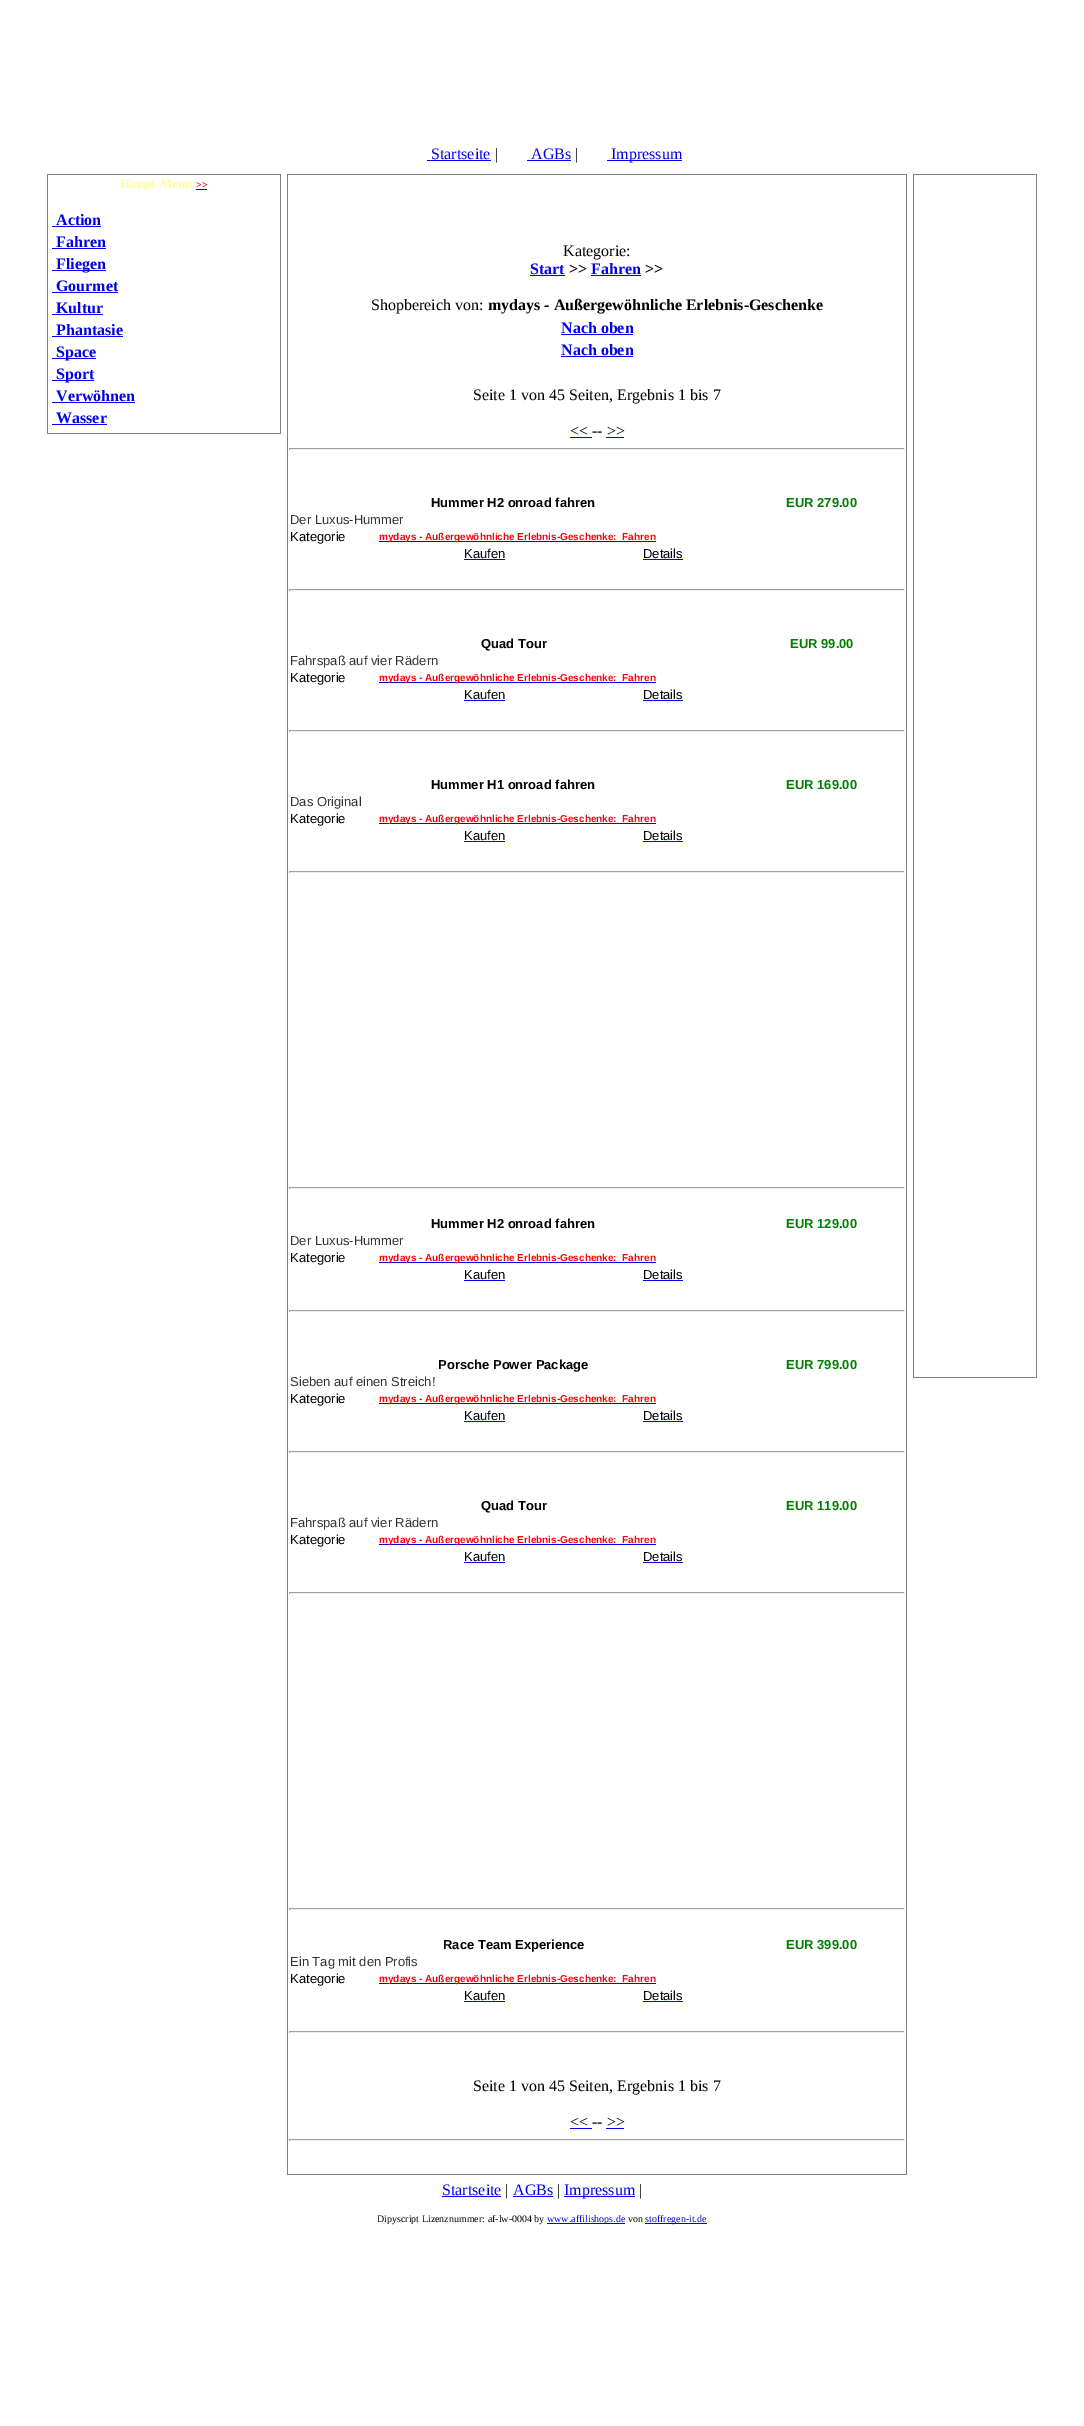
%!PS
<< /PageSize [1084 2426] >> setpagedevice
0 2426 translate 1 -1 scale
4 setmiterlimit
1 setgray
0 0 1084 2426 rectfill
/LiberationSerif-Regular [16 0 0 -16 0 0] selectfont
0 0 0.933 setrgbcolor
431 159 moveto (Startseite) show
427 160 64 1 rectfill
0 setgray
495 159 moveto (|) show
0 0 0.933 setrgbcolor
531 159 moveto (AGBs) show
527 160 44 1 rectfill
0 setgray
575 159 moveto (|) show
0 0 0.933 setrgbcolor
607 160 75 1 rectfill
611 159 moveto (Impressum) show
0.502 setgray
47 174 234 1 rectfill
280 174 1 260 rectfill
47 433 234 1 rectfill
47 174 1 260 rectfill
/LiberationSerif-Bold [13 0 0 -13 0 0] selectfont
1 1 0.6 setrgbcolor
120 188 moveto (Haupt-Menu) show
/LiberationSerif-Bold [10 0 0 -10 0 0] selectfont
1 0 0 setrgbcolor
196 188 moveto (>>) show
0 0 0.933 setrgbcolor
196 189 11 1 rectfill
/LiberationSerif-Bold [16 0 0 -16 0 0] selectfont
56 225 moveto (Action) show
52 226 49 1 rectfill
56 247 moveto (Fahren) show
52 248 54 1 rectfill
52 270 54 1 rectfill
56 269 moveto (Fliegen) show
56 291 moveto (Gourmet) show
52 292 66 1 rectfill
56 313 moveto (Kultur) show
52 314 51 1 rectfill
56 335 moveto (Phantasie) show
52 336 71 1 rectfill
52 358 44 1 rectfill
56 357 moveto (Space) show
52 380 42 1 rectfill
56 379 moveto (Sport) show
56 401 moveto (Verwöhnen) show
52 402 83 1 rectfill
56 423 moveto (Wasser) show
52 424 55 1 rectfill
0.502 setgray
287 174 620 1 rectfill
906 174 1 2001 rectfill
287 2174 620 1 rectfill
287 174 1 2001 rectfill
/LiberationSerif-Regular [16 0 0 -16 0 0] selectfont
0 setgray
563 256 moveto (Kategorie:) show
/LiberationSerif-Bold [16 0 0 -16 0 0] selectfont
0 0 0.933 setrgbcolor
530 274 moveto (Start) show
530 275 35 1 rectfill
0 setgray
569 274 moveto (>>) show
0 0 0.933 setrgbcolor
591 274 moveto (Fahren) show
591 275 50 1 rectfill
0 setgray
645 274 moveto (>>) show
/LiberationSerif-Regular [16 0 0 -16 0 0] selectfont
371 310 moveto (Shopbereich von:) show
/LiberationSerif-Bold [16 0 0 -16 0 0] selectfont
488 310 moveto (mydays - Außergewöhnliche Erlebnis-Geschenke) show
0 0 0.933 setrgbcolor
561 333 moveto (Nach oben) show
561 334 72 1 rectfill
561 355 moveto (Nach oben) show
561 356 72 1 rectfill
/LiberationSerif-Regular [16 0 0 -16 0 0] selectfont
0 setgray
473 400 moveto (Seite 1 von 45 Seiten, Ergebnis 1 bis 7) show
570 436 moveto (<< -- >>) show
0 0 0.933 setrgbcolor
570 437 22 1 rectfill
606 437 18 1 rectfill
0.624 setgray
289 448 616 1 rectfill
0.933 setgray
904 448 1 2 rectfill
289 449 616 1 rectfill
0.624 setgray
289 448 1 2 rectfill
/LiberationSans-Bold [13 0 0 -13 0 0] selectfont
0 setgray
431 507 moveto (Hummer H2 onroad fahren) show
0 0.502 0 setrgbcolor
786 507 moveto (EUR 279.00) show
/LiberationSans-Regular [13 0 0 -13 0 0] selectfont
0.2 setgray
290 524 moveto (Der Luxus-Hummer) show
0 setgray
290 541 moveto (Kategorie) show
0 0 0.933 setrgbcolor
379 541 277 1 rectfill
/LiberationSans-Bold [10 0 0 -10 0 0] selectfont
1 0 0 setrgbcolor
379 540 moveto (mydays - Außergewöhnliche Erlebnis-Geschenke:  Fahren) show
/LiberationSans-Regular [13 0 0 -13 0 0] selectfont
0 setgray
464 558 moveto (Kaufen) show
0 0 0.933 setrgbcolor
464 559 41 1 rectfill
0 setgray
643 558 moveto (Details) show
0 0 0.933 setrgbcolor
643 559 40 1 rectfill
0.624 setgray
289 589 616 1 rectfill
0.933 setgray
904 589 1 2 rectfill
289 590 616 1 rectfill
0.624 setgray
289 589 1 2 rectfill
/LiberationSans-Bold [13 0 0 -13 0 0] selectfont
0 setgray
481 648 moveto (Quad Tour) show
0 0.502 0 setrgbcolor
790 648 moveto (EUR 99.00) show
/LiberationSans-Regular [13 0 0 -13 0 0] selectfont
0.2 setgray
290 665 moveto (Fahrspaß auf vier Rädern) show
0 setgray
290 682 moveto (Kategorie) show
0 0 0.933 setrgbcolor
379 682 277 1 rectfill
/LiberationSans-Bold [10 0 0 -10 0 0] selectfont
1 0 0 setrgbcolor
379 681 moveto (mydays - Außergewöhnliche Erlebnis-Geschenke:  Fahren) show
/LiberationSans-Regular [13 0 0 -13 0 0] selectfont
0 setgray
464 699 moveto (Kaufen) show
0 0 0.933 setrgbcolor
464 700 41 1 rectfill
0 setgray
643 699 moveto (Details) show
0 0 0.933 setrgbcolor
643 700 40 1 rectfill
0.624 setgray
289 730 616 1 rectfill
0.933 setgray
904 730 1 2 rectfill
289 731 616 1 rectfill
0.624 setgray
289 730 1 2 rectfill
/LiberationSans-Bold [13 0 0 -13 0 0] selectfont
0 setgray
431 789 moveto (Hummer H1 onroad fahren) show
0 0.502 0 setrgbcolor
786 789 moveto (EUR 169.00) show
/LiberationSans-Regular [13 0 0 -13 0 0] selectfont
0.2 setgray
290 806 moveto (Das Original) show
0 setgray
290 823 moveto (Kategorie) show
0 0 0.933 setrgbcolor
379 823 277 1 rectfill
/LiberationSans-Bold [10 0 0 -10 0 0] selectfont
1 0 0 setrgbcolor
379 822 moveto (mydays - Außergewöhnliche Erlebnis-Geschenke:  Fahren) show
/LiberationSans-Regular [13 0 0 -13 0 0] selectfont
0 setgray
464 840 moveto (Kaufen) show
0 0 0.933 setrgbcolor
464 841 41 1 rectfill
0 setgray
643 840 moveto (Details) show
0 0 0.933 setrgbcolor
643 841 40 1 rectfill
0.624 setgray
289 871 616 1 rectfill
0.933 setgray
904 871 1 2 rectfill
289 872 616 1 rectfill
0.624 setgray
289 871 1 2 rectfill
289 1187 616 1 rectfill
0.933 setgray
904 1187 1 2 rectfill
289 1188 616 1 rectfill
0.624 setgray
289 1187 1 2 rectfill
/LiberationSans-Bold [13 0 0 -13 0 0] selectfont
0 setgray
431 1228 moveto (Hummer H2 onroad fahren) show
0 0.502 0 setrgbcolor
786 1228 moveto (EUR 129.00) show
/LiberationSans-Regular [13 0 0 -13 0 0] selectfont
0.2 setgray
290 1245 moveto (Der Luxus-Hummer) show
0 setgray
290 1262 moveto (Kategorie) show
0 0 0.933 setrgbcolor
379 1262 277 1 rectfill
/LiberationSans-Bold [10 0 0 -10 0 0] selectfont
1 0 0 setrgbcolor
379 1261 moveto (mydays - Außergewöhnliche Erlebnis-Geschenke:  Fahren) show
/LiberationSans-Regular [13 0 0 -13 0 0] selectfont
0 setgray
464 1279 moveto (Kaufen) show
0 0 0.933 setrgbcolor
464 1280 41 1 rectfill
0 setgray
643 1279 moveto (Details) show
0 0 0.933 setrgbcolor
643 1280 40 1 rectfill
0.624 setgray
289 1310 616 1 rectfill
0.933 setgray
904 1310 1 2 rectfill
289 1311 616 1 rectfill
0.624 setgray
289 1310 1 2 rectfill
/LiberationSans-Bold [13 0 0 -13 0 0] selectfont
0 setgray
438 1369 moveto (Porsche Power Package) show
0 0.502 0 setrgbcolor
786 1369 moveto (EUR 799.00) show
/LiberationSans-Regular [13 0 0 -13 0 0] selectfont
0.2 setgray
290 1386 moveto (Sieben auf einen Streich!) show
0 setgray
290 1403 moveto (Kategorie) show
0 0 0.933 setrgbcolor
379 1403 277 1 rectfill
/LiberationSans-Bold [10 0 0 -10 0 0] selectfont
1 0 0 setrgbcolor
379 1402 moveto (mydays - Außergewöhnliche Erlebnis-Geschenke:  Fahren) show
/LiberationSans-Regular [13 0 0 -13 0 0] selectfont
0 setgray
464 1420 moveto (Kaufen) show
0 0 0.933 setrgbcolor
464 1421 41 1 rectfill
0 setgray
643 1420 moveto (Details) show
0 0 0.933 setrgbcolor
643 1421 40 1 rectfill
0.624 setgray
289 1451 616 1 rectfill
0.933 setgray
904 1451 1 2 rectfill
289 1452 616 1 rectfill
0.624 setgray
289 1451 1 2 rectfill
/LiberationSans-Bold [13 0 0 -13 0 0] selectfont
0 setgray
481 1510 moveto (Quad Tour) show
0 0.502 0 setrgbcolor
786 1510 moveto (EUR 119.00) show
/LiberationSans-Regular [13 0 0 -13 0 0] selectfont
0.2 setgray
290 1527 moveto (Fahrspaß auf vier Rädern) show
0 setgray
290 1544 moveto (Kategorie) show
0 0 0.933 setrgbcolor
379 1544 277 1 rectfill
/LiberationSans-Bold [10 0 0 -10 0 0] selectfont
1 0 0 setrgbcolor
379 1543 moveto (mydays - Außergewöhnliche Erlebnis-Geschenke:  Fahren) show
/LiberationSans-Regular [13 0 0 -13 0 0] selectfont
0 setgray
464 1561 moveto (Kaufen) show
0 0 0.933 setrgbcolor
464 1562 41 1 rectfill
0 setgray
643 1561 moveto (Details) show
0 0 0.933 setrgbcolor
643 1562 40 1 rectfill
0.624 setgray
289 1592 616 1 rectfill
0.933 setgray
904 1592 1 2 rectfill
289 1593 616 1 rectfill
0.624 setgray
289 1592 1 2 rectfill
289 1908 616 1 rectfill
0.933 setgray
904 1908 1 2 rectfill
289 1909 616 1 rectfill
0.624 setgray
289 1908 1 2 rectfill
/LiberationSans-Bold [13 0 0 -13 0 0] selectfont
0 setgray
443 1949 moveto (Race Team Experience) show
0 0.502 0 setrgbcolor
786 1949 moveto (EUR 399.00) show
/LiberationSans-Regular [13 0 0 -13 0 0] selectfont
0.2 setgray
290 1966 moveto (Ein Tag mit den Profis) show
0 setgray
290 1983 moveto (Kategorie) show
0 0 0.933 setrgbcolor
379 1983 277 1 rectfill
/LiberationSans-Bold [10 0 0 -10 0 0] selectfont
1 0 0 setrgbcolor
379 1982 moveto (mydays - Außergewöhnliche Erlebnis-Geschenke:  Fahren) show
/LiberationSans-Regular [13 0 0 -13 0 0] selectfont
0 setgray
464 2000 moveto (Kaufen) show
0 0 0.933 setrgbcolor
464 2001 41 1 rectfill
0 setgray
643 2000 moveto (Details) show
0 0 0.933 setrgbcolor
643 2001 40 1 rectfill
0.624 setgray
289 2031 616 1 rectfill
0.933 setgray
904 2031 1 2 rectfill
289 2032 616 1 rectfill
0.624 setgray
289 2031 1 2 rectfill
/LiberationSerif-Regular [16 0 0 -16 0 0] selectfont
0 setgray
473 2091 moveto (Seite 1 von 45 Seiten, Ergebnis 1 bis 7) show
570 2127 moveto (<< -- >>) show
0 0 0.933 setrgbcolor
570 2128 22 1 rectfill
606 2128 18 1 rectfill
0.624 setgray
289 2139 616 1 rectfill
0.933 setgray
904 2139 1 2 rectfill
289 2140 616 1 rectfill
0.624 setgray
289 2139 1 2 rectfill
0.502 setgray
913 174 124 1 rectfill
1036 174 1 1204 rectfill
913 1377 124 1 rectfill
913 174 1 1204 rectfill
0 0 0.933 setrgbcolor
442 2195 moveto (Startseite) show
442 2196 59 1 rectfill
0 setgray
505 2195 moveto (|) show
0 0 0.933 setrgbcolor
513 2195 moveto (AGBs) show
513 2196 40 1 rectfill
0 setgray
557 2195 moveto (|) show
0 0 0.933 setrgbcolor
564 2196 71 1 rectfill
564 2195 moveto (Impressum) show
0 setgray
639 2195 moveto (|) show
/LiberationSerif-Regular [10 0 0 -10 0 0] selectfont
377 2222 moveto (Dipyscript Lizenznummer: af-lw-0004 by) show
0 0 0.933 setrgbcolor
547 2223 78 1 rectfill
547 2222 moveto (www.affilishops.de) show
0 setgray
628 2222 moveto (von) show
0 0 0.933 setrgbcolor
645 2223 62 1 rectfill
645 2222 moveto (stoffregen-it.de) show
showpage
